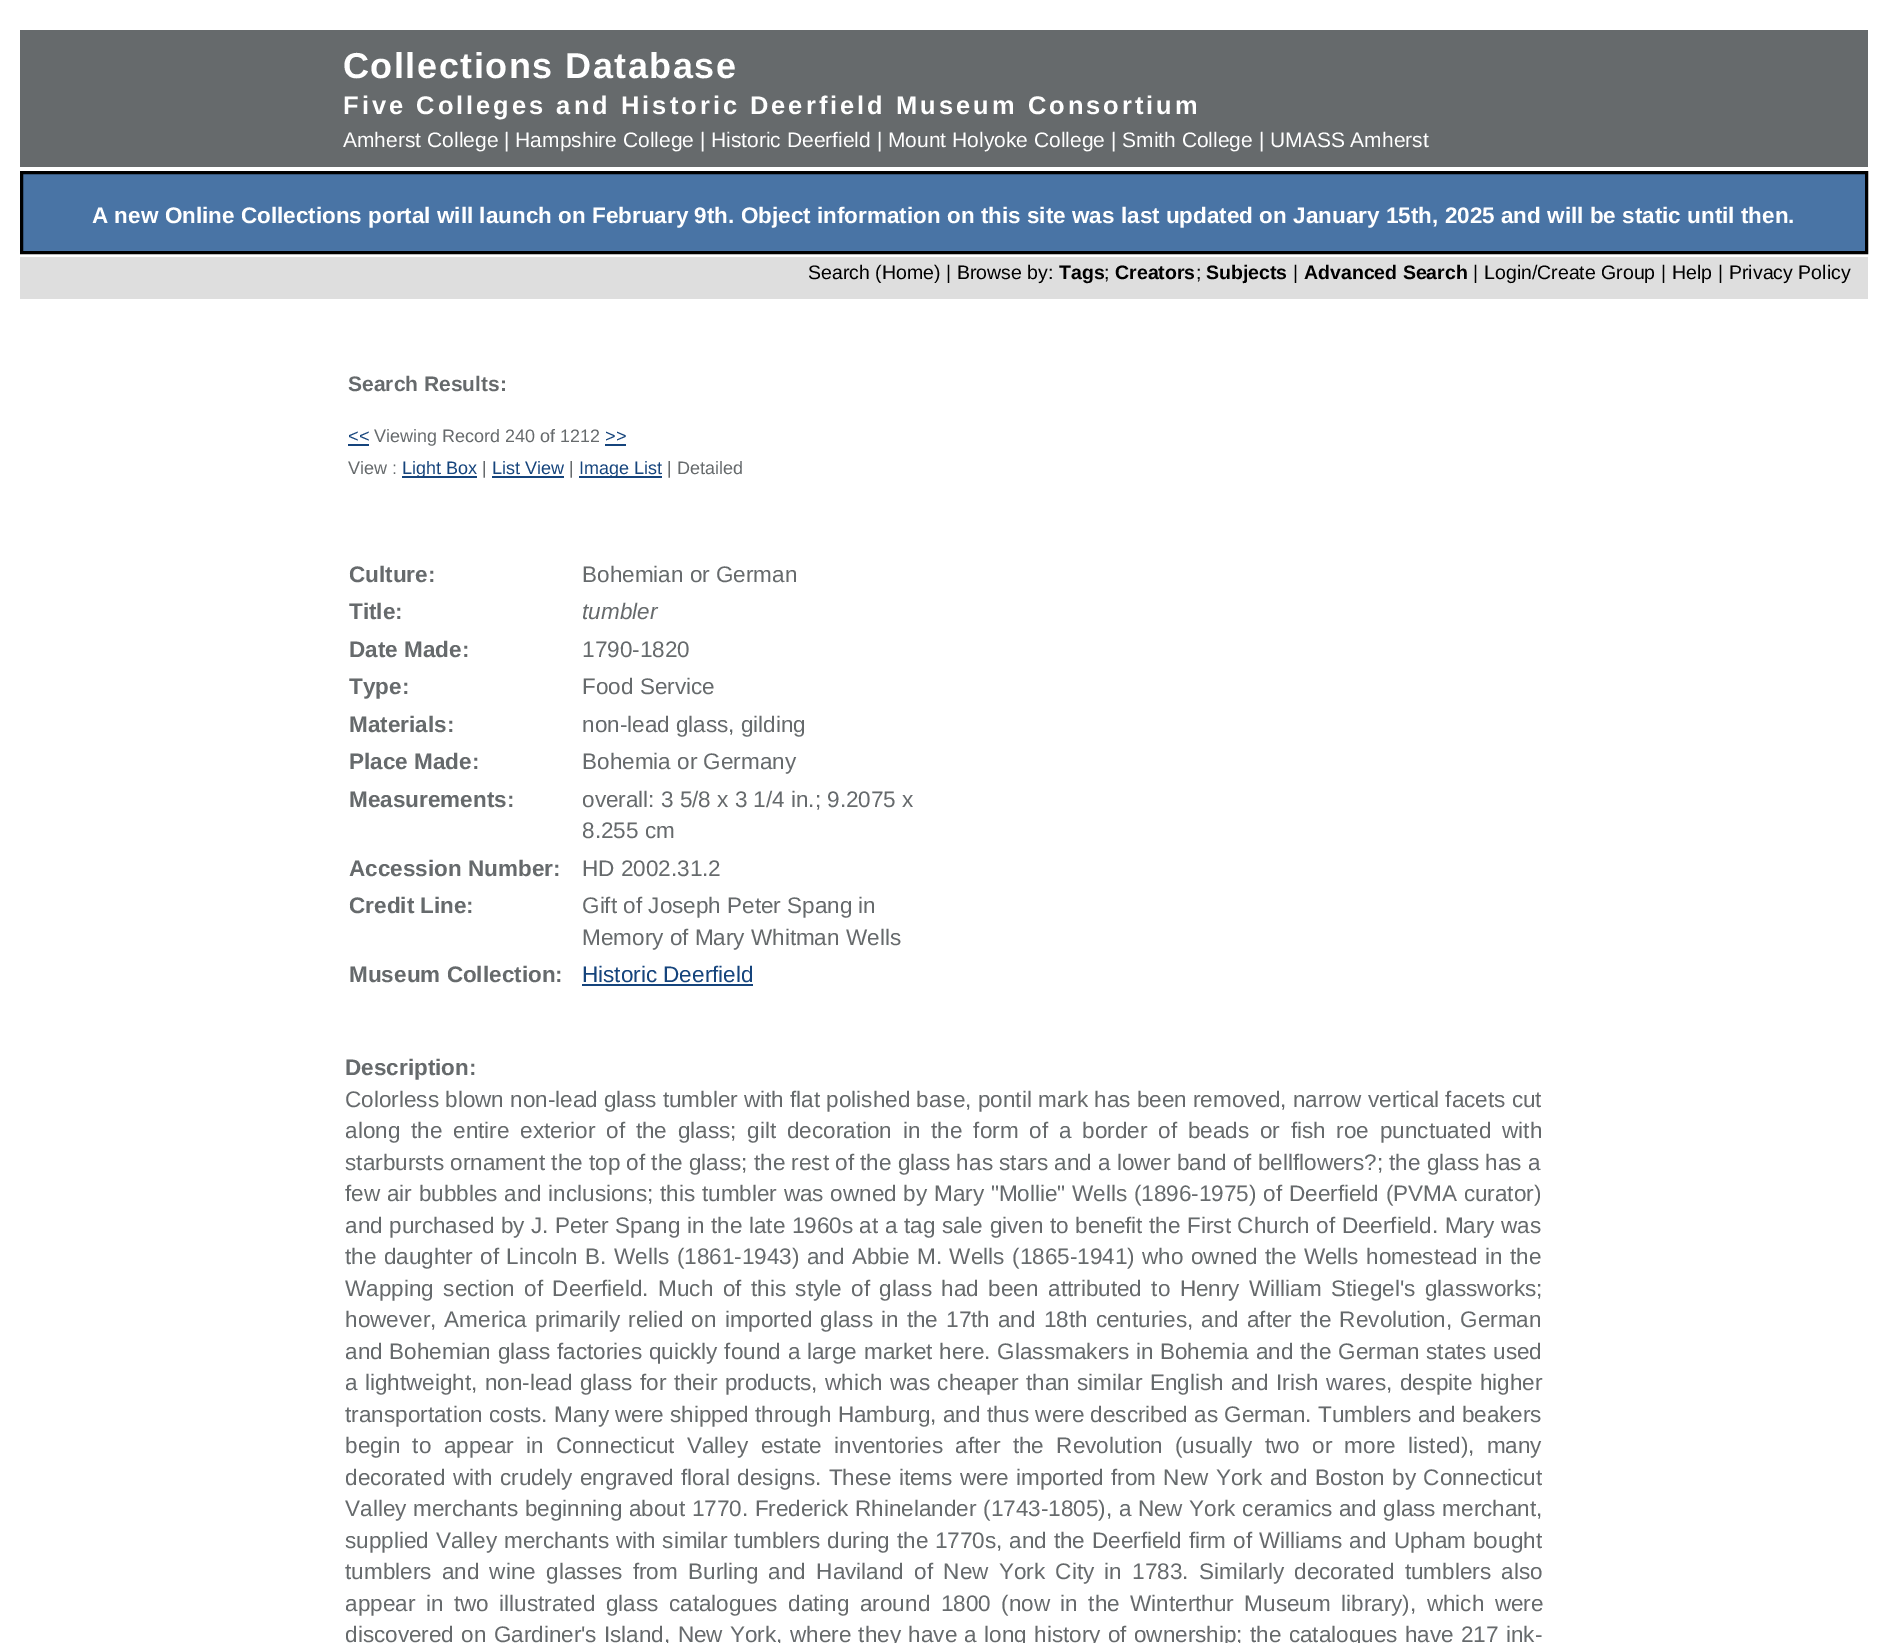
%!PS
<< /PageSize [1887 1643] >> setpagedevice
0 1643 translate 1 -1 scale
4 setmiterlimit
1 setgray
0 0 1887 1643 rectfill
0.4 0.416 0.424 setrgbcolor
20 30 1848 137 rectfill
/LiberationSans-Bold [36 0 0 -36 0 0] selectfont
1 setgray
343 78 moveto 1.5 0 (Collections Database) ashow
/LiberationSans-Bold [25.5 0 0 -25.5 0 0] selectfont
343 114 moveto 3 0 (Five Colleges and Historic Deerfield Museum Consortium) ashow
/LiberationSans-Regular [21 0 0 -21 0 0] selectfont
343 147 moveto (Amherst College | Hampshire College | Historic Deerfield | Mount Holyoke College | Smith College | UMASS Amherst) show
0.286 0.455 0.647 setrgbcolor
newpath 21.5 172.5 moveto 1866.5 172.5 lineto 1866.5 252.5 lineto 21.5 252.5 lineto closepath gsave fill grestore
0 setgray
3 setlinewidth
stroke
/LiberationSans-Bold [22.5 0 0 -22.5 0 0] selectfont
1 setgray
92 223 moveto (A new Online Collections portal will launch on February 9th. Object information on this site was last updated on January 15th, 2025 and will be static until then.) show
0.871 setgray
20 257 1848 42 rectfill
/LiberationSans-Regular [19.5 0 0 -19.5 0 0] selectfont
0 setgray
808 279 moveto (Search \(Home\) |) show
957 279 moveto (Browse by:) show
/LiberationSans-Bold [19.5 0 0 -19.5 0 0] selectfont
1059 279 moveto (Tags) show
/LiberationSans-Regular [19.5 0 0 -19.5 0 0] selectfont
1104 279 moveto (;) show
/LiberationSans-Bold [19.5 0 0 -19.5 0 0] selectfont
1115 279 moveto (Creators) show
/LiberationSans-Regular [19.5 0 0 -19.5 0 0] selectfont
1196 279 moveto (;) show
/LiberationSans-Bold [19.5 0 0 -19.5 0 0] selectfont
1206 279 moveto (Subjects) show
/LiberationSans-Regular [19.5 0 0 -19.5 0 0] selectfont
1293 279 moveto (|) show
/LiberationSans-Bold [19.5 0 0 -19.5 0 0] selectfont
1304 279 moveto (Advanced Search) show
/LiberationSans-Regular [19.5 0 0 -19.5 0 0] selectfont
1473 279 moveto (|) show
1484 279 moveto (Login/Create Group |) show
1672 279 moveto (Help |) show
1729 279 moveto (Privacy Policy) show
/LiberationSans-Bold [21 0 0 -21 0 0] selectfont
0.4 0.416 0.424 setrgbcolor
348 391 moveto (Search Results:) show
/LiberationSans-Regular [18 0 0 -18 0 0] selectfont
0.082 0.267 0.486 setrgbcolor
348 442 moveto (<<) show
348 444 21 2 rectfill
0.4 0.416 0.424 setrgbcolor
374 442 moveto (Viewing Record 240 of 1212) show
0.082 0.267 0.486 setrgbcolor
605 442 moveto (>>) show
605 444 21 2 rectfill
0.4 0.416 0.424 setrgbcolor
348 474 moveto (View :) show
0.082 0.267 0.486 setrgbcolor
402 476 75 2 rectfill
402 474 moveto (Light Box) show
0.4 0.416 0.424 setrgbcolor
482 474 moveto (|) show
0.082 0.267 0.486 setrgbcolor
492 474 moveto (List View) show
492 476 72 2 rectfill
0.4 0.416 0.424 setrgbcolor
569 474 moveto (|) show
0.082 0.267 0.486 setrgbcolor
579 476 83 2 rectfill
579 474 moveto (Image List) show
0.4 0.416 0.424 setrgbcolor
667 474 moveto (| Detailed) show
/LiberationSans-Bold [22.5 0 0 -22.5 0 0] selectfont
349 582 moveto (Culture:) show
/LiberationSans-Regular [22.5 0 0 -22.5 0 0] selectfont
582 582 moveto (Bohemian or German) show
/LiberationSans-Bold [22.5 0 0 -22.5 0 0] selectfont
349 619 moveto (Title:) show
/LiberationSans-Italic [22.5 0 0 -22.5 0 0] selectfont
582 619 moveto (tumbler) show
/LiberationSans-Bold [22.5 0 0 -22.5 0 0] selectfont
349 657 moveto (Date Made:) show
/LiberationSans-Regular [22.5 0 0 -22.5 0 0] selectfont
582 657 moveto (1790-1820) show
/LiberationSans-Bold [22.5 0 0 -22.5 0 0] selectfont
349 694 moveto (Type:) show
/LiberationSans-Regular [22.5 0 0 -22.5 0 0] selectfont
582 694 moveto (Food Service) show
/LiberationSans-Bold [22.5 0 0 -22.5 0 0] selectfont
349 732 moveto (Materials:) show
/LiberationSans-Regular [22.5 0 0 -22.5 0 0] selectfont
582 732 moveto (non-lead glass, gilding) show
/LiberationSans-Bold [22.5 0 0 -22.5 0 0] selectfont
349 769 moveto (Place Made:) show
/LiberationSans-Regular [22.5 0 0 -22.5 0 0] selectfont
582 769 moveto (Bohemia or Germany) show
/LiberationSans-Bold [22.5 0 0 -22.5 0 0] selectfont
349 807 moveto (Measurements:) show
/LiberationSans-Regular [22.5 0 0 -22.5 0 0] selectfont
582 807 moveto (overall: 3 5/8 x 3 1/4 in.; 9.2075 x) show
582 838 moveto (8.255 cm) show
/LiberationSans-Bold [22.5 0 0 -22.5 0 0] selectfont
349 876 moveto (Accession Number:) show
/LiberationSans-Regular [22.5 0 0 -22.5 0 0] selectfont
582 876 moveto (HD 2002.31.2) show
/LiberationSans-Bold [22.5 0 0 -22.5 0 0] selectfont
349 913 moveto (Credit Line:) show
/LiberationSans-Regular [22.5 0 0 -22.5 0 0] selectfont
582 913 moveto (Gift of Joseph Peter Spang in) show
582 945 moveto (Memory of Mary Whitman Wells) show
/LiberationSans-Bold [22.5 0 0 -22.5 0 0] selectfont
349 982 moveto (Museum Collection:) show
/LiberationSans-Regular [22.5 0 0 -22.5 0 0] selectfont
0.082 0.267 0.486 setrgbcolor
582 982 moveto (Historic Deerfield) show
582 984 171 2 rectfill
/LiberationSans-Bold [22.5 0 0 -22.5 0 0] selectfont
0.4 0.416 0.424 setrgbcolor
345 1075 moveto (Description:) show
/LiberationSans-Regular [22.5 0 0 -22.5 0 0] selectfont
345 1107 moveto (Colorless blown non-lead glass tumbler with flat polished base, pontil mark has been removed, narrow vertical facets cut) show
345 1138 moveto 4.6 0 32 (along the entire exterior of the glass; gilt decoration in the form of a border of beads or fish roe punctuated with) widthshow
345 1170 moveto (starbursts ornament the top of the glass; the rest of the glass has stars and a lower band of bellflowers?; the glass has a) show
345 1201 moveto 0.5 0 32 (few air bubbles and inclusions; this tumbler was owned by Mary "Mollie" Wells \(1896-1975\) of Deerfield \(PVMA curator\)) widthshow
345 1233 moveto 0.3 0 32 (and purchased by J. Peter Spang in the late 1960s at a tag sale given to benefit the First Church of Deerfield. Mary was) widthshow
345 1264 moveto 1.3 0 32 (the daughter of Lincoln B. Wells \(1861-1943\) and Abbie M. Wells \(1865-1941\) who owned the Wells homestead in the) widthshow
345 1296 moveto 3.25 0 32 (Wapping section of Deerfield. Much of this style of glass had been attributed to Henry William Stiegel's glassworks;) widthshow
345 1327 moveto 1.9 0 32 (however, America primarily relied on imported glass in the 17th and 18th centuries, and after the Revolution, German) widthshow
345 1359 moveto 0.6 0 32 (and Bohemian glass factories quickly found a large market here. Glassmakers in Bohemia and the German states used) widthshow
345 1390 moveto 1.2 0 32 (a lightweight, non-lead glass for their products, which was cheaper than similar English and Irish wares, despite higher) widthshow
345 1422 moveto (transportation costs. Many were shipped through Hamburg, and thus were described as German. Tumblers and beakers) show
345 1453 moveto 6.1 0 32 (begin to appear in Connecticut Valley estate inventories after the Revolution \(usually two or more listed\), many) widthshow
345 1485 moveto 1.2 0 32 (decorated with crudely engraved floral designs. These items were imported from New York and Boston by Connecticut) widthshow
345 1516 moveto 0.4 0 32 (Valley merchants beginning about 1770. Frederick Rhinelander \(1743-1805\), a New York ceramics and glass merchant,) widthshow
345 1548 moveto 0.6 0 32 (supplied Valley merchants with similar tumblers during the 1770s, and the Deerfield firm of Williams and Upham bought) widthshow
345 1579 moveto 4.1 0 32 (tumblers and wine glasses from Burling and Haviland of New York City in 1783. Similarly decorated tumblers also) widthshow
345 1611 moveto 4.25 0 32 (appear in two illustrated glass catalogues dating around 1800 \(now in the Winterthur Museum library\), which were) widthshow
345 1642 moveto 1.1 0 32 (discovered on Gardiner's Island, New York, where they have a long history of ownership; the catalogues have 217 ink-) widthshow
showpage
